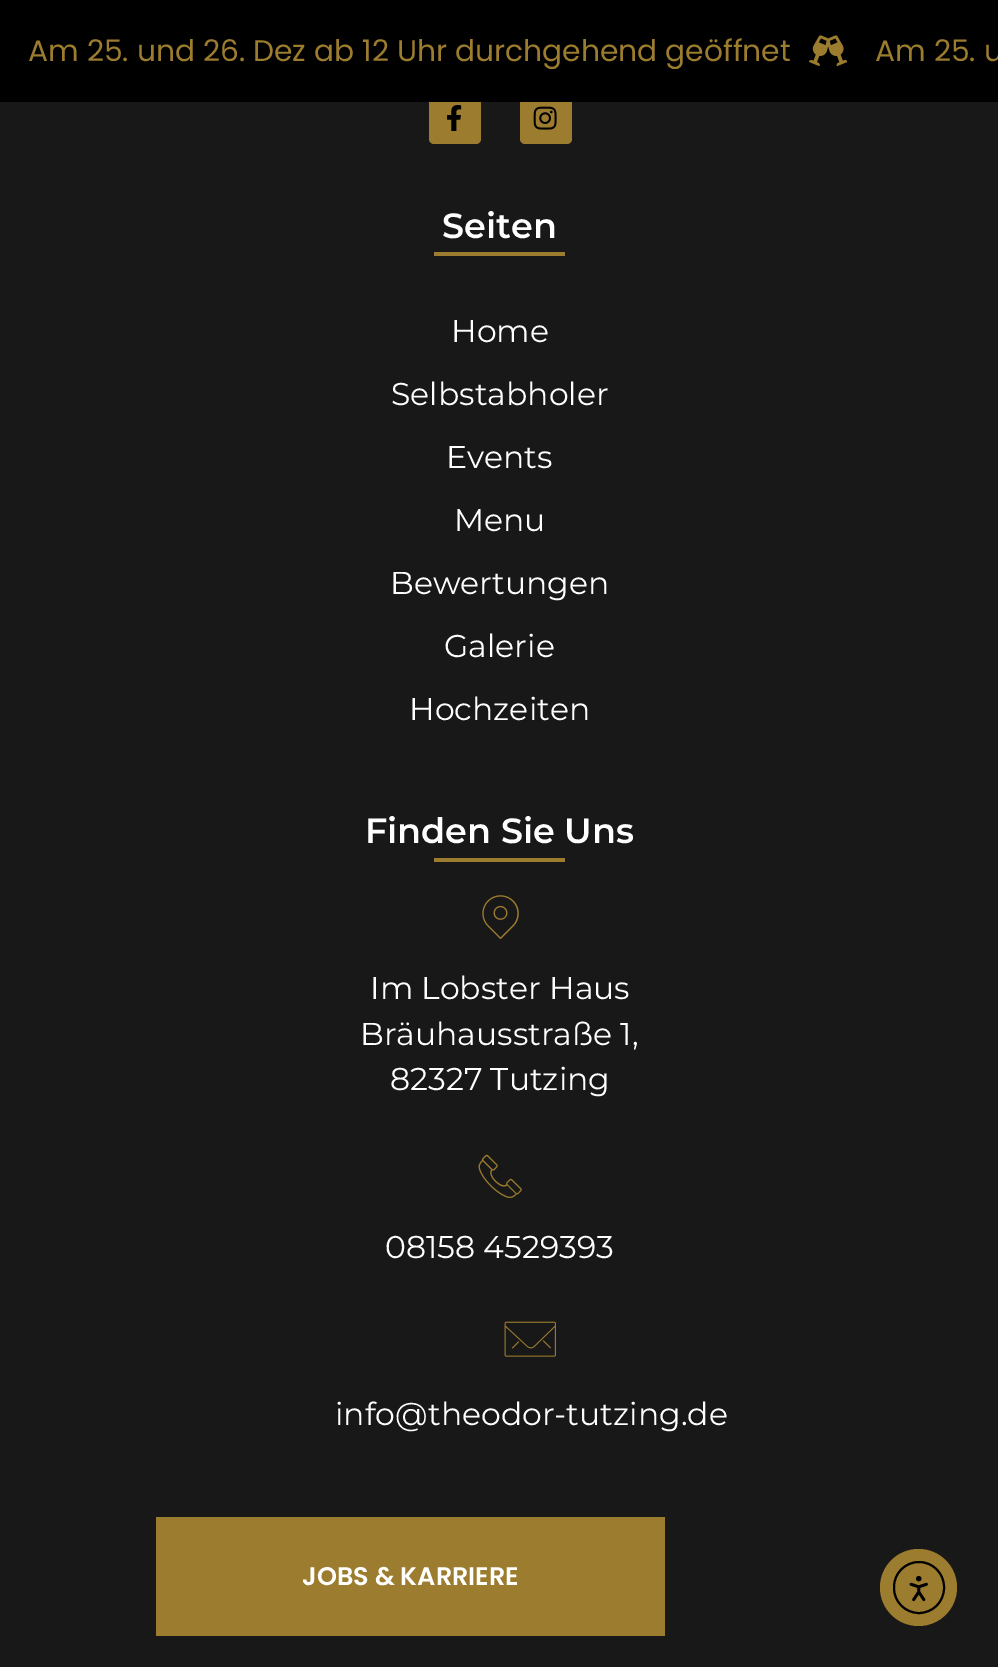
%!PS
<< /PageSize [998 1667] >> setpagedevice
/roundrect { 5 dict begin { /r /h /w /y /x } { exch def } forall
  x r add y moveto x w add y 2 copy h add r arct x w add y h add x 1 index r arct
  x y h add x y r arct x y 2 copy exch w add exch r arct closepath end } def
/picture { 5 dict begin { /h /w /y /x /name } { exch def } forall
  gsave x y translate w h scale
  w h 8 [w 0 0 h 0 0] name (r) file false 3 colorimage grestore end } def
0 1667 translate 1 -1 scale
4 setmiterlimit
0.094 setgray
0 0 998 1667 rectfill
0.612 0.486 0.18 setrgbcolor
429 91 52 53 5 roundrect fill
520 91 52 53 5 roundrect fill
0 setgray
0 0 998 102 rectfill
/Poppins-Regular [29.75 0 0 -29.75 0 0] selectfont
0.612 0.486 0.18 setrgbcolor
28 61 moveto (Am 25. und 26. Dez ab 12 Uhr durchgehend geöffnet) show
(img1.rgb) 809 35 38 32 picture
875 61 moveto (Am 25. u) show
(img2.rgb) 447 105 15 26 picture
(img3.rgb) 533 106 24 24 picture
/Montserrat-SemiBold [35 0 0 -35 0 0] selectfont
1 setgray
442 238 moveto (Seiten) show
0.612 0.486 0.18 setrgbcolor
434 252 131 4 rectfill
/Montserrat-Regular [31.5 0 0 -31.5 0 0] selectfont
1 setgray
451 342 moveto (Home) show
391 405 moveto (Selbstabholer) show
446 468 moveto (Events) show
454 531 moveto (Menu) show
390 594 moveto (Bewertungen) show
444 657 moveto (Galerie) show
409 720 moveto (Hochzeiten) show
/Montserrat-SemiBold [35 0 0 -35 0 0] selectfont
365 843 moveto (Finden Sie Uns) show
0.612 0.486 0.18 setrgbcolor
434 858 131 4 rectfill
(img4.rgb) 482 895 37 44 picture
/Montserrat-Regular [31.5 0 0 -31.5 0 0] selectfont
1 setgray
370 999 moveto (Im Lobster Haus) show
360 1045 moveto (Bräuhausstraße 1,) show
390 1090 moveto (82327 Tutzing) show
(img5.rgb) 478 1154 44 44 picture
385 1258 moveto (08158 4529393) show
(img6.rgb) 504 1321 52 36 picture
335 1425 moveto (info@theodor-tutzing.de) show
0.612 0.486 0.18 setrgbcolor
156 1517 509 119 rectfill
/Poppins-SemiBold [25.5 0 0 -25.5 0 0] selectfont
1 setgray
302 1585 moveto (JOBS & KARRIERE) show
0.612 0.486 0.18 setrgbcolor
newpath 918.5 1587.5 38.5 0 360 arc closepath fill
0 setgray
2 setlinewidth
894 1562 50 51 25 roundrect stroke
(img7.rgb) 909 1575 19 27 picture
showpage
